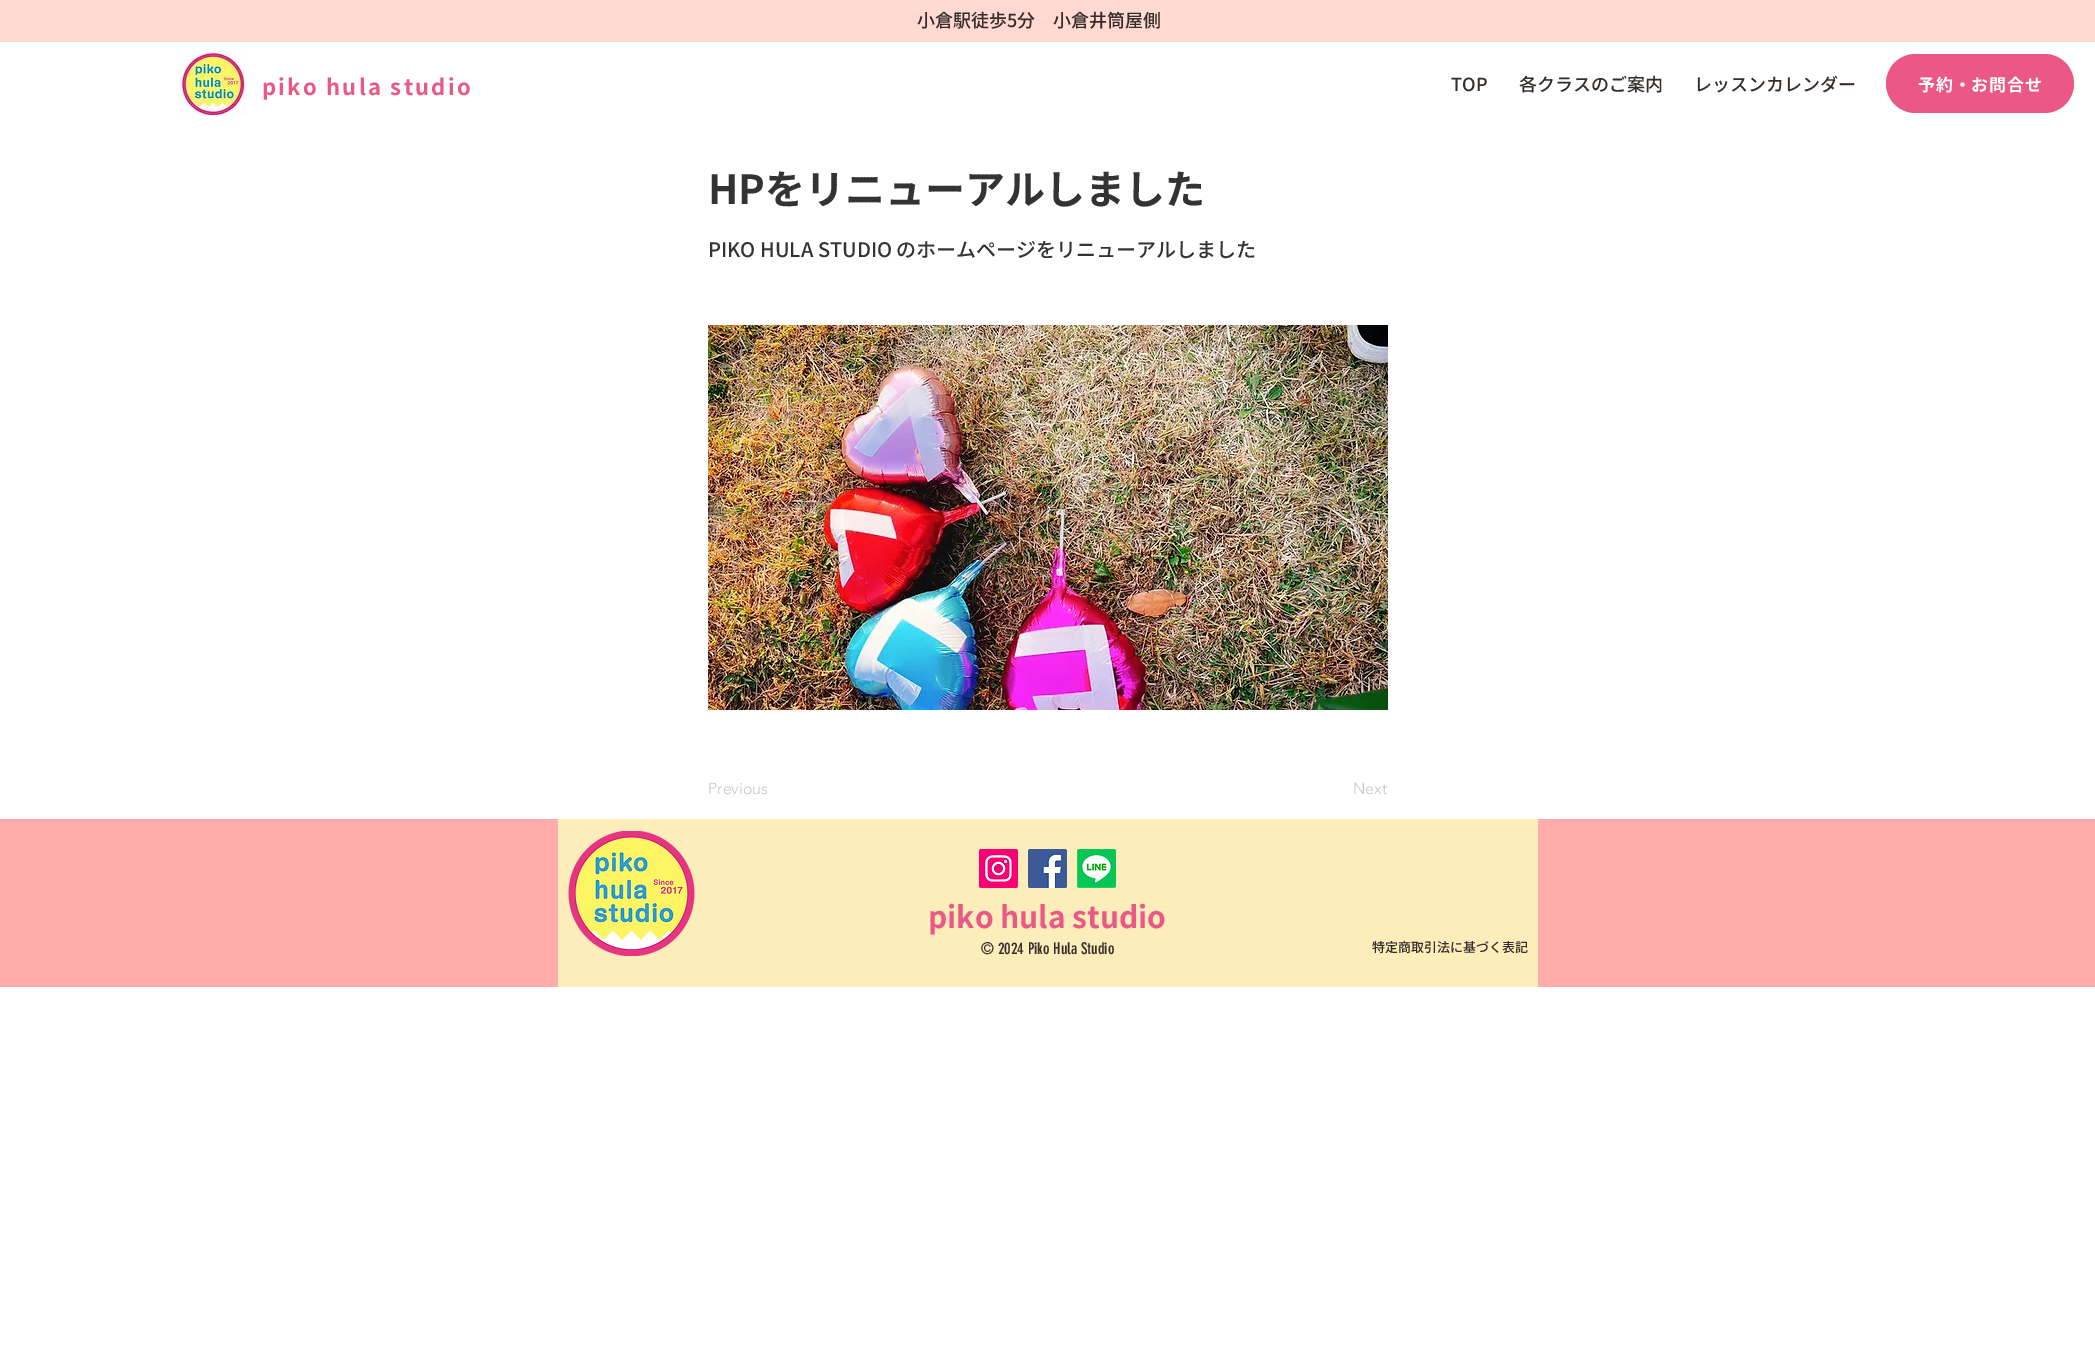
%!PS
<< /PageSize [2095 1361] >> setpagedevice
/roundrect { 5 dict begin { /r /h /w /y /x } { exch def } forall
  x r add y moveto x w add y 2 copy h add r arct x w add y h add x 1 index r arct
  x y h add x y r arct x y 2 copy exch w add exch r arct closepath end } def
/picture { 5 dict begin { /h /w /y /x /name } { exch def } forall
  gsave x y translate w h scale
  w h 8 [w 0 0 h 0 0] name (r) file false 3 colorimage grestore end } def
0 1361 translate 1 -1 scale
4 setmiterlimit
1 setgray
0 0 2095 1361 rectfill
1 0.851 0.824 setrgbcolor
0 0 2095 42 rectfill
/NotoSansJP-Medium [18 0 0 -18 0 0] selectfont
0.208 0.176 0.165 setrgbcolor
917 27 moveto (小倉駅徒歩5分　小倉井筒屋側) show
(img1.rgb) 179 51 68 65 picture
/NotoSansJP-Bold [22 0 0 -22 0 0] selectfont
0.922 0.345 0.525 setrgbcolor
262 95 moveto 2.25 0 (piko hula studio) ashow
/NotoSansJP-Medium [18 0 0 -18 0 0] selectfont
0.208 0.176 0.165 setrgbcolor
1451 91 moveto (TOP) show
1519 91 moveto (各クラスのご案内) show
1694 91 moveto (レッスンカレンダー) show
0.922 0.345 0.525 setrgbcolor
1886 54 188 59 29.5 roundrect fill
/NotoSansJP-Bold [17 0 0 -17 0 0] selectfont
1 setgray
1918 91 moveto 0.75 0 (予約・お問合せ) ashow
/NotoSansJP-Bold [40 0 0 -40 0 0] selectfont
0.2 setgray
708 204 moveto (HPをリニューアルしました) show
/NotoSansJP-Medium [20 0 0 -20 0 0] selectfont
708 257 moveto (PIKO HULA STUDIO のホームページをリニューアルしました) show
(img2.rgb) 708 325 680 385 picture
/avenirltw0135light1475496-Light [16 0 0 -16 0 0] selectfont
0.78 setgray
708 794 moveto (Previous) show
1353 794 moveto (Next) show
1 0.675 0.675 setrgbcolor
0 819 2095 168 rectfill
0.988 0.929 0.733 setrgbcolor
558 819 980 168 rectfill
(img3.rgb) 568 831 127 125 picture
(img4.rgb) 979 849 39 39 picture
(img5.rgb) 1028 849 39 39 picture
(img6.rgb) 1077 849 39 39 picture
/NotoSansJP-Bold [30 0 0 -30 0 0] selectfont
0.922 0.345 0.525 setrgbcolor
928 928 moveto (piko hula studio) show
/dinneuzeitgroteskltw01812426-Regular [16 0 0 -16 0 0] selectfont
0.208 0.176 0.165 setrgbcolor
981 954 moveto (© 2024 Piko Hula Studio) show
/NotoSansJP-Medium [13 0 0 -13 0 0] selectfont
1372 952 moveto (特定商取引法に基づく表記) show
showpage
